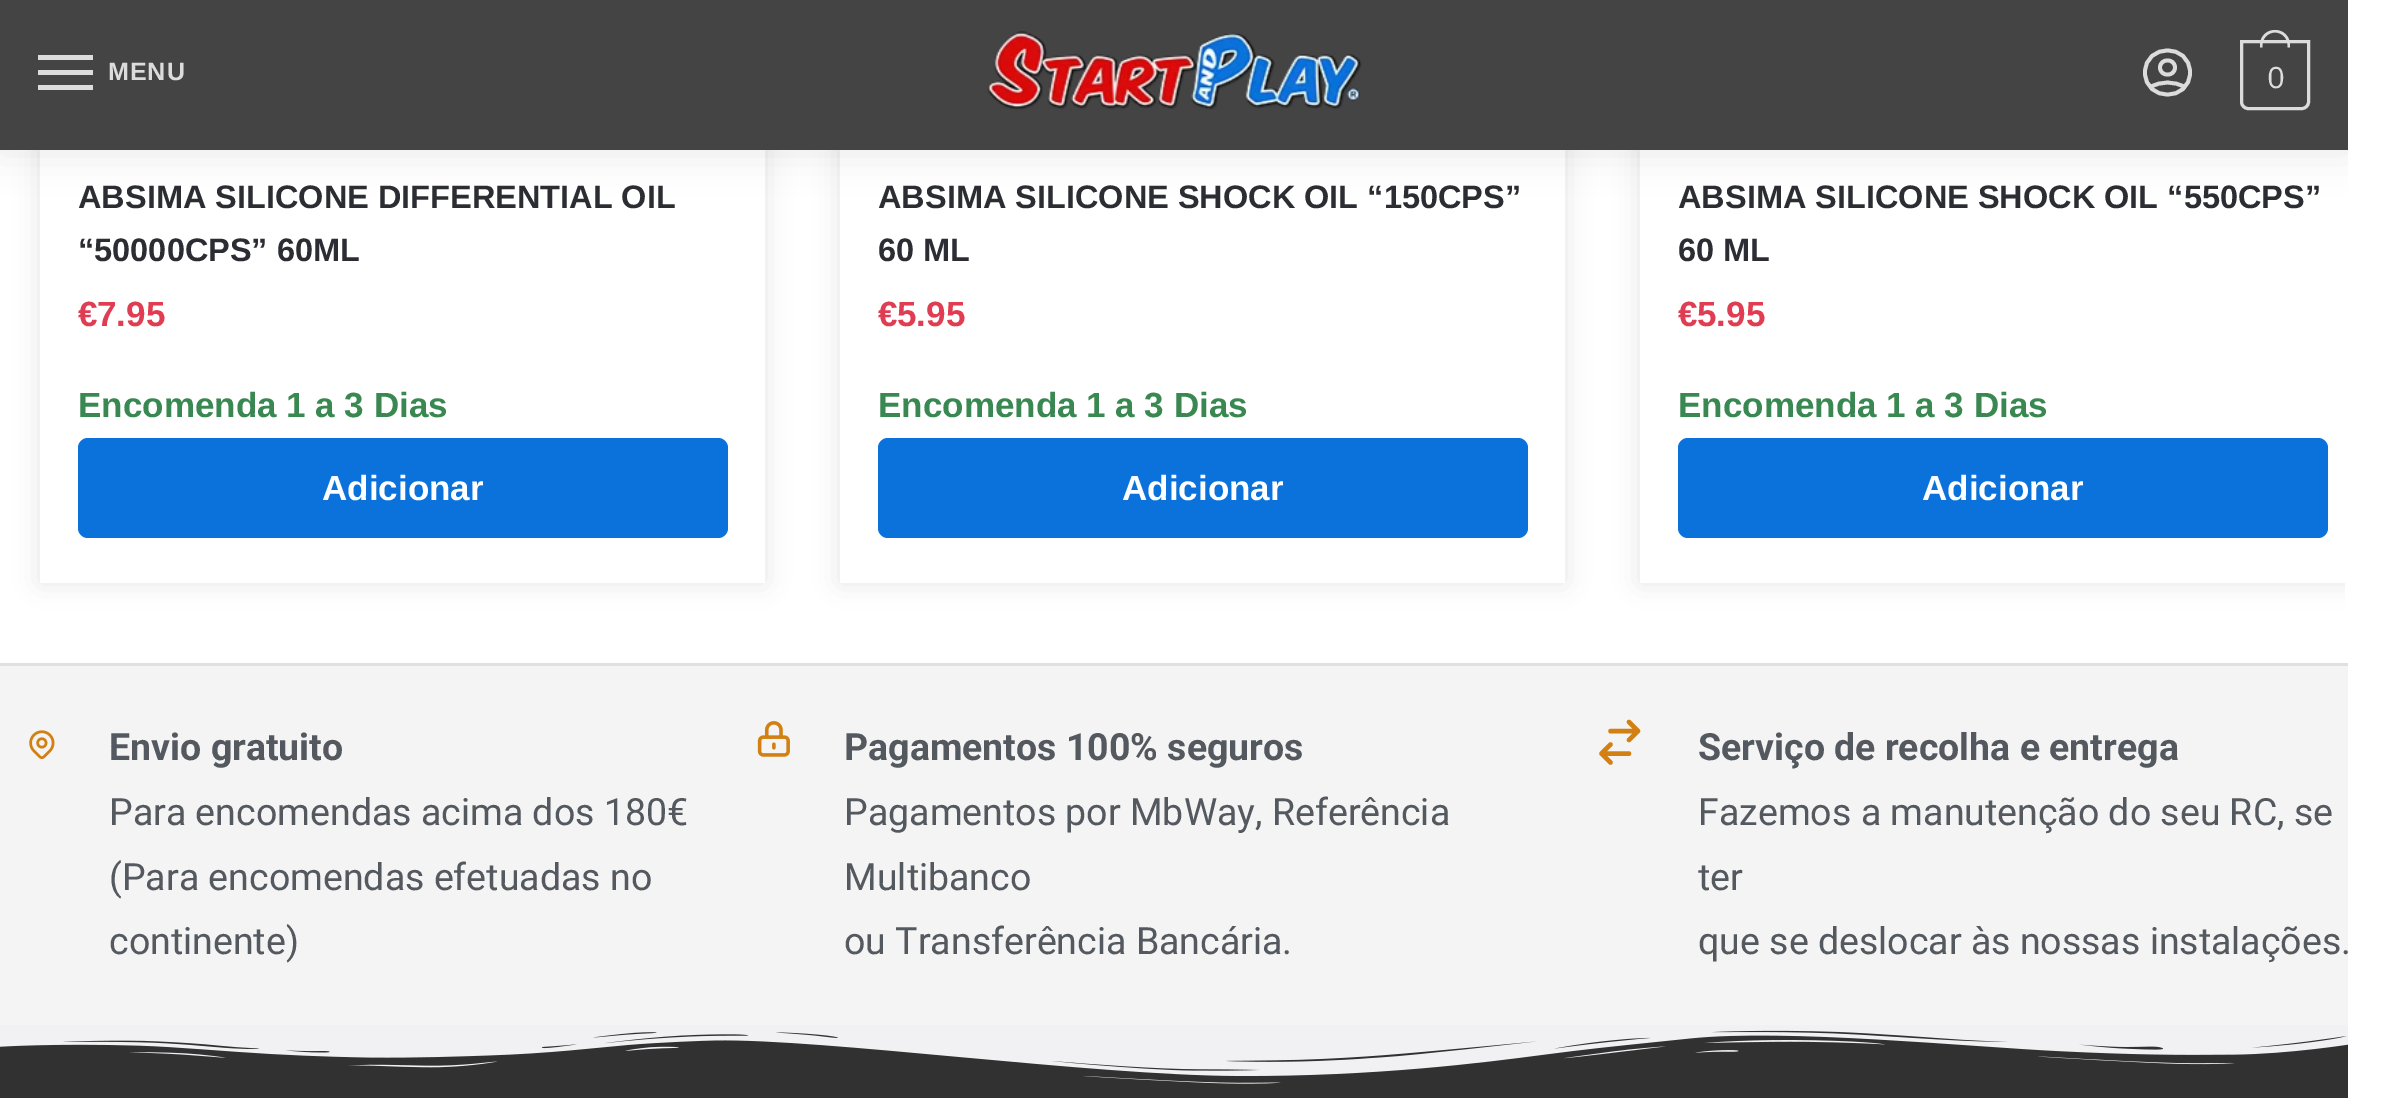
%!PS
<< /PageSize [2383 1098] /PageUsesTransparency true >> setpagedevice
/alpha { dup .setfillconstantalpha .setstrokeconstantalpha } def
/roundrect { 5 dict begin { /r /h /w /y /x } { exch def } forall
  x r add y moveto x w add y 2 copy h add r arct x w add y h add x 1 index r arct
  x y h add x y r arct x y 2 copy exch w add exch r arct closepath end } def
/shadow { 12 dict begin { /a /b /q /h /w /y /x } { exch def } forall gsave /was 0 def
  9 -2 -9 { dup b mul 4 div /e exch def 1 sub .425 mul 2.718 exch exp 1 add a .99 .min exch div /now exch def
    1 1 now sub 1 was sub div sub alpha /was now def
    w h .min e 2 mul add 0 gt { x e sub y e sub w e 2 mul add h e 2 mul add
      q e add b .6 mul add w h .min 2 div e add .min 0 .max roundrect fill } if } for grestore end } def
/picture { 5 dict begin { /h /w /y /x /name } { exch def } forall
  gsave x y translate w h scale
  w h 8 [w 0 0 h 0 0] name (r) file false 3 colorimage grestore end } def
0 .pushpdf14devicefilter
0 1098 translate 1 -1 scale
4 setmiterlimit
0.957 setgray
0 0 2383 1098 rectfill
1 setgray
0 150 2348 513 rectfill
0 setgray
0 3 2348 150 0 19 0.08 shadow
gsave
newpath 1 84 moveto 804 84 lineto 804 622 lineto 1 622 lineto closepath 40 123 moveto 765 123 lineto 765 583 lineto 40 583 lineto closepath eoclip newpath
40 123 725 460 0 12.5 0.1 shadow
grestore
gsave
newpath 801 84 moveto 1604 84 lineto 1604 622 lineto 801 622 lineto closepath 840 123 moveto 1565 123 lineto 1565 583 lineto 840 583 lineto closepath eoclip newpath
840 123 725 460 0 12.5 0.1 shadow
grestore
gsave
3 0 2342 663 rectclip
newpath 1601 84 moveto 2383 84 lineto 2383 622 lineto 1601 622 lineto closepath 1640 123 moveto 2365 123 lineto 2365 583 lineto 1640 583 lineto closepath eoclip newpath
1640 123 725 460 0 12.5 0.1 shadow
grestore
0.267 setgray
0 0 2348 150 rectfill
0.863 setgray
38 55 55 5 rectfill
38 70 55 5 rectfill
/LiberationSans-Bold [25 0 0 -25 0 0] selectfont
108 80 moveto 1 0 (MENU) ashow
38 85 55 5 rectfill
(img1.rgb) 987 31 375 79 picture
3.8 setlinewidth
1 setlinecap
1 setlinejoin
newpath 2150.5 87 moveto 2161 81 2174 81 2184.5 87 curveto 2175 67.5 moveto 2175 77 2160 77 2160 67.5 curveto 2160 58 2175 58 2175 67.5 curveto closepath 2190 72.5 moveto 2190 102 2145 102 2145 72.5 curveto 2145 43 2190 43 2190 72.5 curveto closepath stroke
3 setlinewidth
0 setlinecap
0 setlinejoin
newpath 2241.5 41.5 moveto 2308.5 41.5 lineto 2308.5 102 lineto 2308.5 105.5 2305.5 108.5 2302 108.5 curveto 2248 108.5 lineto 2244.5 108.5 2241.5 105.5 2241.5 102 curveto closepath stroke
newpath 2275 30 moveto 2283.5 30 2290 36.5 2290 45 curveto 2290 47.5 lineto 2260 47.5 lineto 2260 45 lineto 2260 36.5 2266.5 30 2275 30 curveto closepath 2275 32.5 moveto 2282 32.5 2287.5 38 2287.5 45 curveto 2287.5 47.5 lineto 2262.5 47.5 lineto 2262.5 45 lineto 2262.5 38 2268 32.5 2275 32.5 curveto closepath eofill
/IBMPlexSansArabic-Regular [30 0 0 -30 0 0] selectfont
2267 88 moveto -2 0 (0) ashow
1 setgray
2348 0 35 1098 rectfill
/LiberationSans-Bold [32.5 0 0 -32.5 0 0] selectfont
0.173 0.176 0.2 setrgbcolor
78 208 moveto (ABSIMA SILICONE DIFFERENTIAL OIL) show
78 261 moveto (“50000CPS” 60ML) show
/LiberationSans-Bold [35 0 0 -35 0 0] selectfont
0.878 0.239 0.322 setrgbcolor
78 326 moveto (€) show
97 326 moveto (7.95) show
0.227 0.533 0.318 setrgbcolor
78 417 moveto (Encomenda 1 a 3 Dias) show
0.043 0.447 0.859 setrgbcolor
78 438 650 100 10 roundrect fill
1 setgray
322 500 moveto (Adicionar) show
/LiberationSans-Bold [32.5 0 0 -32.5 0 0] selectfont
0.173 0.176 0.2 setrgbcolor
878 208 moveto (ABSIMA SILICONE SHOCK OIL “150CPS”) show
878 261 moveto (60 ML) show
/LiberationSans-Bold [35 0 0 -35 0 0] selectfont
0.878 0.239 0.322 setrgbcolor
878 326 moveto (€) show
897 326 moveto (5.95) show
0.227 0.533 0.318 setrgbcolor
878 417 moveto (Encomenda 1 a 3 Dias) show
0.043 0.447 0.859 setrgbcolor
878 438 650 100 10 roundrect fill
1 setgray
1122 500 moveto (Adicionar) show
/LiberationSans-Bold [32.5 0 0 -32.5 0 0] selectfont
0.173 0.176 0.2 setrgbcolor
1678 208 moveto (ABSIMA SILICONE SHOCK OIL “550CPS”) show
1678 261 moveto (60 ML) show
/LiberationSans-Bold [35 0 0 -35 0 0] selectfont
0.878 0.239 0.322 setrgbcolor
1678 326 moveto (€) show
1697 326 moveto (5.95) show
0.227 0.533 0.318 setrgbcolor
1678 417 moveto (Encomenda 1 a 3 Dias) show
0.043 0.447 0.859 setrgbcolor
1678 438 650 100 10 roundrect fill
1 setgray
1922 500 moveto (Adicionar) show
0.878 setgray
0 663 2348 3 rectfill
(img2.rgb) 29 730 26 30 picture
/Roboto-Bold [37.5 0 0 -37.5 0 0] selectfont
0.329 0.349 0.373 setrgbcolor
109 760 moveto (Envio gratuito) show
/Roboto-Regular [37.5 0 0 -37.5 0 0] selectfont
109 825 moveto (Para encomendas acima dos 180€) show
109 890 moveto (\(Para encomendas efetuadas no) show
109 954 moveto (continente\)) show
(img3.rgb) 757 721 33 36 picture
/Roboto-Bold [37.5 0 0 -37.5 0 0] selectfont
844 760 moveto (Pagamentos 100% seguros) show
/Roboto-Regular [37.5 0 0 -37.5 0 0] selectfont
844 825 moveto (Pagamentos por MbWay, Referência) show
844 890 moveto (Multibanco) show
844 954 moveto (ou Transferência Bancária.) show
0.824 0.502 0.071 setrgbcolor
4.5 setlinewidth
1 setlinecap
1 setlinejoin
newpath 1610.5 731 moveto 1638 731 lineto 1638 731 moveto 1629 722 lineto 1638 731 moveto 1629 740 lineto 1629 753.5 moveto 1601.5 753.5 lineto 1601.5 753.5 moveto 1610.5 762.5 lineto 1601.5 753.5 moveto 1610.5 744.5 lineto stroke
/Roboto-Bold [37.5 0 0 -37.5 0 0] selectfont
0.329 0.349 0.373 setrgbcolor
1698 760 moveto (Serviço de recolha e entrega) show
/Roboto-Regular [37.5 0 0 -37.5 0 0] selectfont
1698 825 moveto (Fazemos a manutenção do seu RC, se) show
1698 890 moveto (ter) show
1698 954 moveto (que se deslocar às nossas instalações.) show
0.192 setgray
0 1030 2348 68 rectfill
(img4.rgb) 0 1025 2348 59 picture
.poppdf14devicefilter showpage
